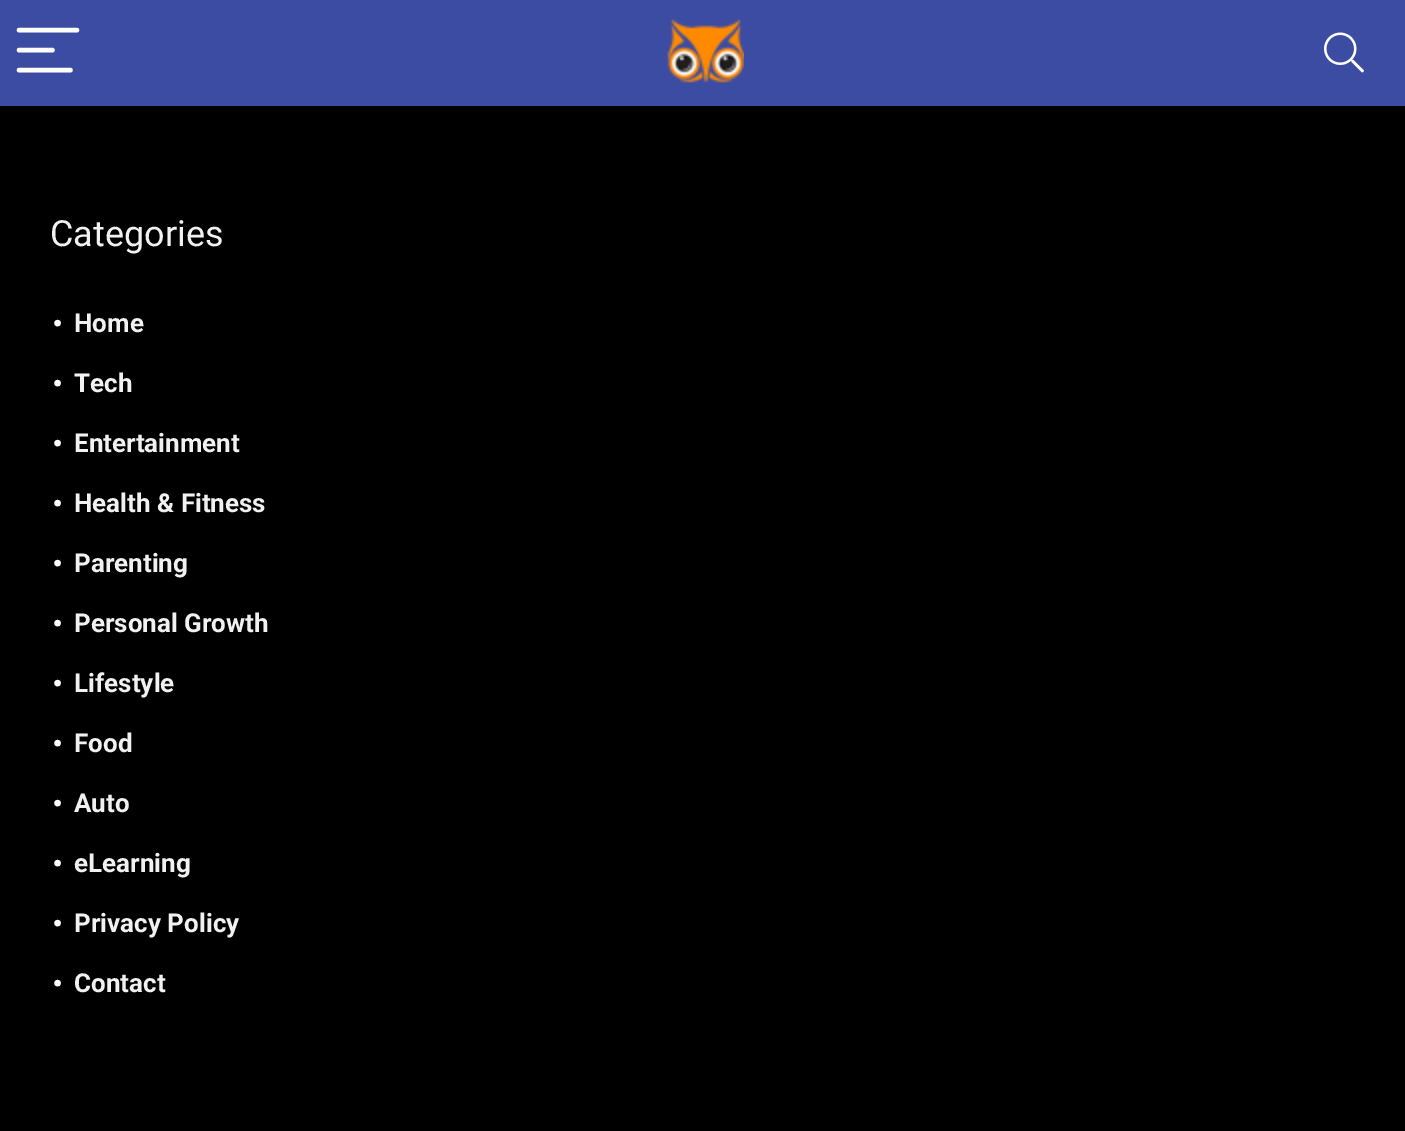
%!PS
<< /PageSize [1405 1131] >> setpagedevice
/picture { 5 dict begin { /h /w /y /x /name } { exch def } forall
  gsave x y translate w h scale
  w h 8 [w 0 0 h 0 0] name (r) file false 3 colorimage grestore end } def
0 1131 translate 1 -1 scale
4 setmiterlimit
0 setgray
0 0 1405 1131 rectfill
0.235 0.298 0.635 setrgbcolor
0 0 1405 106 rectfill
1 setgray
4.5 setlinewidth
1 setlinecap
newpath 19 30 moveto 77 30 lineto stroke
newpath 19 50 moveto 52.5 50 lineto 19 70 moveto 70.5 70 lineto stroke
(img1.rgb) 667 19 77 64 picture
(img2.rgb) 1324 32 40 41 picture
/Roboto-Regular [36 0 0 -36 0 0] selectfont
0.945 setgray
50 246 moveto (Categories) show
/Roboto-Regular [60 0 0 -60 0 0] selectfont
1 setgray
50 326 moveto (.) show
/Roboto-Bold [26 0 0 -26 0 0] selectfont
0.945 setgray
74 332 moveto (Home) show
/Roboto-Regular [60 0 0 -60 0 0] selectfont
1 setgray
50 386 moveto (.) show
/Roboto-Bold [26 0 0 -26 0 0] selectfont
0.945 setgray
74 392 moveto (Tech) show
/Roboto-Regular [60 0 0 -60 0 0] selectfont
1 setgray
50 446 moveto (.) show
/Roboto-Bold [26 0 0 -26 0 0] selectfont
0.945 setgray
74 452 moveto (Entertainment) show
/Roboto-Regular [60 0 0 -60 0 0] selectfont
1 setgray
50 506 moveto (.) show
/Roboto-Bold [26 0 0 -26 0 0] selectfont
0.945 setgray
74 512 moveto (Health & Fitness) show
/Roboto-Regular [60 0 0 -60 0 0] selectfont
1 setgray
50 566 moveto (.) show
/Roboto-Bold [26 0 0 -26 0 0] selectfont
0.945 setgray
74 572 moveto (Parenting) show
/Roboto-Regular [60 0 0 -60 0 0] selectfont
1 setgray
50 626 moveto (.) show
/Roboto-Bold [26 0 0 -26 0 0] selectfont
0.945 setgray
74 632 moveto (Personal Growth) show
/Roboto-Regular [60 0 0 -60 0 0] selectfont
1 setgray
50 686 moveto (.) show
/Roboto-Bold [26 0 0 -26 0 0] selectfont
0.945 setgray
74 692 moveto (Lifestyle) show
/Roboto-Regular [60 0 0 -60 0 0] selectfont
1 setgray
50 746 moveto (.) show
/Roboto-Bold [26 0 0 -26 0 0] selectfont
0.945 setgray
74 752 moveto (Food) show
/Roboto-Regular [60 0 0 -60 0 0] selectfont
1 setgray
50 806 moveto (.) show
/Roboto-Bold [26 0 0 -26 0 0] selectfont
0.945 setgray
74 812 moveto (Auto) show
/Roboto-Regular [60 0 0 -60 0 0] selectfont
1 setgray
50 866 moveto (.) show
/Roboto-Bold [26 0 0 -26 0 0] selectfont
0.945 setgray
74 872 moveto (eLearning) show
/Roboto-Regular [60 0 0 -60 0 0] selectfont
1 setgray
50 926 moveto (.) show
/Roboto-Bold [26 0 0 -26 0 0] selectfont
0.945 setgray
74 932 moveto (Privacy Policy) show
/Roboto-Regular [60 0 0 -60 0 0] selectfont
1 setgray
50 986 moveto (.) show
/Roboto-Bold [26 0 0 -26 0 0] selectfont
0.945 setgray
74 992 moveto (Contact) show
showpage
